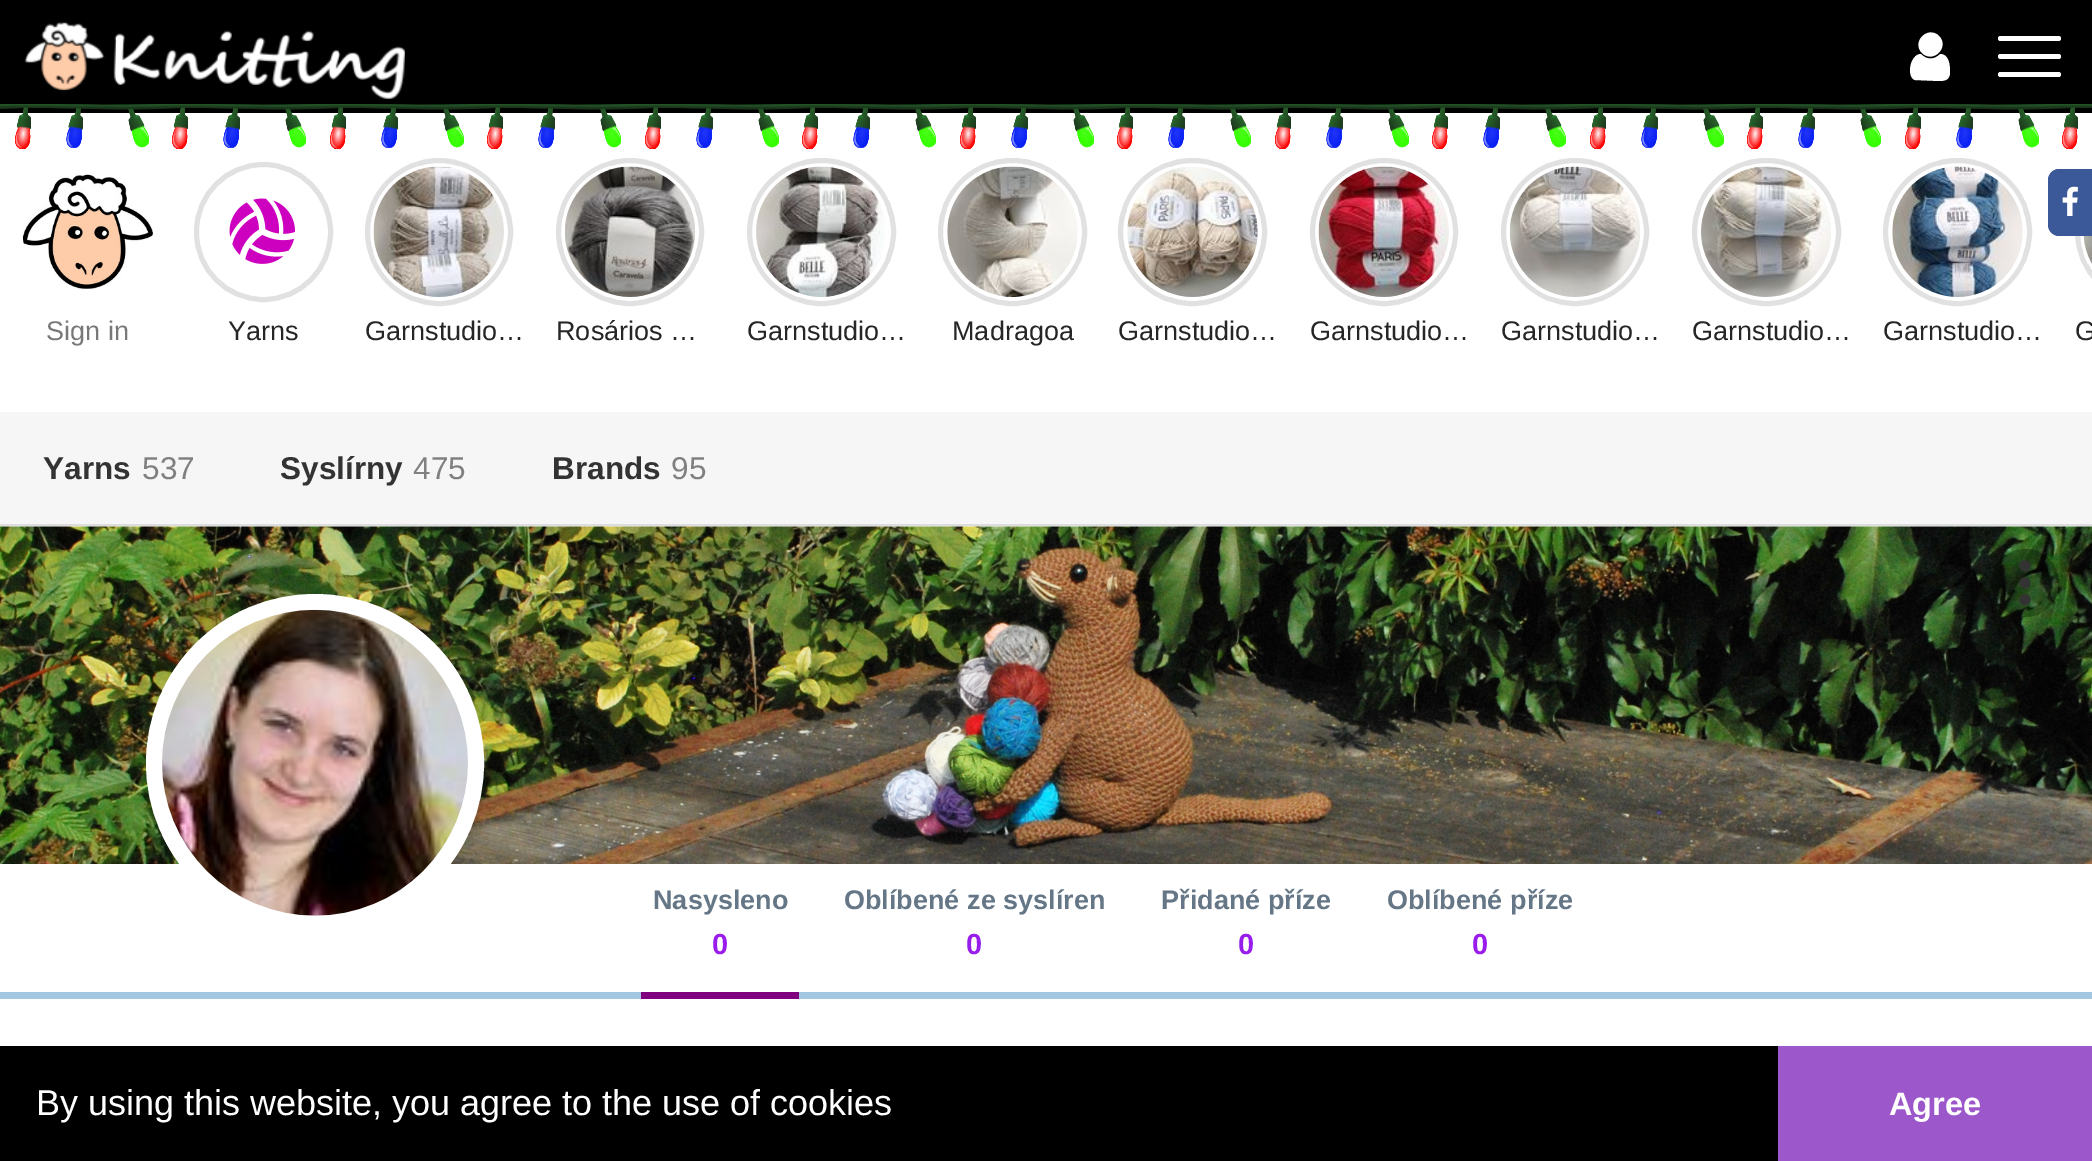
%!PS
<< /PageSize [2092 1161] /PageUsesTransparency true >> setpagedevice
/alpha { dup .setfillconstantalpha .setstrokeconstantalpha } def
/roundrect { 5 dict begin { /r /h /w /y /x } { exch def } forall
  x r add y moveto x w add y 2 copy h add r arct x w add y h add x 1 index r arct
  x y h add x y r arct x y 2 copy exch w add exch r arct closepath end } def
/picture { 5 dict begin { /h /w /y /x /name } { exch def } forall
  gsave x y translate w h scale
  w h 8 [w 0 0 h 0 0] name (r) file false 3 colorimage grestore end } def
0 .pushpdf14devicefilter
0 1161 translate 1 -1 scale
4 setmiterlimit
1 setgray
0 0 2092 1161 rectfill
0 setgray
0 0 2092 113 rectfill
(img1.rgb) 24 21 381 79 picture
1 setgray
newpath 1950 72 moveto 1950 80 1945 81 1939 81 curveto 1915 80 lineto 1906 77 1910 54 1921 54 curveto 1926 60 1935 60 1940 54 curveto 1949 54 1950 65 1950 72 curveto closepath 1939 36 moveto 1950 47 1933 64 1922 53 curveto 1911 42 1928 25 1939 36 curveto closepath fill
(img2.rgb) 0 104 2092 45 picture
(img3.rgb) 0 104 2092 45 picture
(img4.rgb) 0 104 2092 45 picture
(img5.rgb) 2 104 2076 45 picture
1998 36 63 5 2.5 roundrect fill
1998 54 63 5 2.5 roundrect fill
1998 72 63 5 2.5 roundrect fill
0.882 setgray
5 setlinewidth
2077.5 160.5 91 143 71.5 roundrect stroke
0.231 0.349 0.596 setrgbcolor
newpath 2059 169 moveto 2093 169 lineto 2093 236 lineto 2059 236 lineto 2053 236 2048 231 2048 225 curveto 2048 180 lineto 2048 174 2053 169 2059 169 curveto closepath fill
(img6.rgb) 2062 186 16 30 picture
(img7.rgb) 22 172 131 118 picture
/LiberationSans-Regular [27 0 0 -27 0 0] selectfont
0.471 setgray
46 340 moveto (Sign in) show
0.882 setgray
196.5 164.5 134 135 67 roundrect stroke
(img8.rgb) 229 198 67 66 picture
0.149 setgray
228 340 moveto (Yarns) show
0.882 setgray
newpath 439 232 71.5 0 360 arc closepath stroke
(img9.rgb) 373 166 131 131 picture
0.149 setgray
365 340 moveto (Garnstudio…) show
0.882 setgray
newpath 630 232 71.5 0 360 arc closepath stroke
(img10.rgb) 564 166 131 131 picture
0.149 setgray
556 340 moveto (Rosários …) show
0.882 setgray
749.5 160.5 144 143 71.5 roundrect stroke
(img11.rgb) 756 166 129 131 picture
0.149 setgray
747 340 moveto (Garnstudio…) show
0.882 setgray
940.5 160.5 144 143 71.5 roundrect stroke
(img12.rgb) 947 166 131 131 picture
0.149 setgray
952 340 moveto (Madragoa) show
0.882 setgray
1120.5 160.5 144 143 71.5 roundrect stroke
(img13.rgb) 1127 167 131 130 picture
0.149 setgray
1118 340 moveto (Garnstudio…) show
0.882 setgray
newpath 1384 232 71.5 0 360 arc closepath stroke
(img14.rgb) 1318 166 131 131 picture
0.149 setgray
1310 340 moveto (Garnstudio…) show
0.882 setgray
newpath 1575 232 71.5 0 360 arc closepath stroke
(img15.rgb) 1509 166 131 131 picture
0.149 setgray
1501 340 moveto (Garnstudio…) show
0.882 setgray
1694.5 160.5 144 143 71.5 roundrect stroke
(img16.rgb) 1701 166 130 131 picture
0.149 setgray
1692 340 moveto (Garnstudio…) show
0.882 setgray
1885.5 160.5 144 143 71.5 roundrect stroke
(img17.rgb) 1892 166 131 131 picture
0.149 setgray
1883 340 moveto (Garnstudio…) show
(img18.rgb) 2083 236 9 28 picture
2075 340 moveto (G) show
0.965 setgray
0 412 2092 115 rectfill
0.867 setgray
0 524 2092 2 rectfill
/LiberationSans-Bold [31.5 0 0 -31.5 0 0] selectfont
0.2 setgray
43 479 moveto (Yarns) show
/LiberationSans-Regular [31.5 0 0 -31.5 0 0] selectfont
0.502 setgray
142 479 moveto (537) show
/LiberationSans-Bold [31.5 0 0 -31.5 0 0] selectfont
0.2 setgray
280 479 moveto (Syslírny) show
/LiberationSans-Regular [31.5 0 0 -31.5 0 0] selectfont
0.502 setgray
413 479 moveto (475) show
/LiberationSans-Bold [31.5 0 0 -31.5 0 0] selectfont
0.2 setgray
552 479 moveto (Brands) show
/LiberationSans-Regular [31.5 0 0 -31.5 0 0] selectfont
0.502 setgray
671 479 moveto (95) show
(img19.rgb) 0 526 2092 338 picture
0.3 alpha
0 setgray
newpath 2025 583 34 0 360 arc closepath fill
1 alpha
(img20.rgb) 2019 560 12 46 picture
1 setgray
newpath 315 763 161 0 360 arc closepath gsave fill grestore
16 setlinewidth
stroke
(img21.rgb) 162 609 306 307 picture
0.631 0.784 0.878 setrgbcolor
0 992 2092 7 rectfill
0.502 0 0.502 setrgbcolor
641 992 158 7 rectfill
/LiberationSans-Bold [27 0 0 -27 0 0] selectfont
0.396 0.467 0.525 setrgbcolor
653 909 moveto (Nasysleno) show
/LiberationSans-Bold [29 0 0 -29 0 0] selectfont
0.596 0.11 0.922 setrgbcolor
712 954 moveto (0) show
/LiberationSans-Bold [27 0 0 -27 0 0] selectfont
0.396 0.467 0.525 setrgbcolor
844 909 moveto (Oblíbené ze syslíren) show
/LiberationSans-Bold [29 0 0 -29 0 0] selectfont
0.596 0.11 0.922 setrgbcolor
966 954 moveto (0) show
/LiberationSans-Bold [27 0 0 -27 0 0] selectfont
0.396 0.467 0.525 setrgbcolor
1161 909 moveto (Přidané příze) show
/LiberationSans-Bold [29 0 0 -29 0 0] selectfont
0.596 0.11 0.922 setrgbcolor
1238 954 moveto (0) show
/LiberationSans-Bold [27 0 0 -27 0 0] selectfont
0.396 0.467 0.525 setrgbcolor
1387 909 moveto (Oblíbené příze) show
/LiberationSans-Bold [29 0 0 -29 0 0] selectfont
0.596 0.11 0.922 setrgbcolor
1472 954 moveto (0) show
0 setgray
0 1046 1778 115 rectfill
/LiberationSans-Regular [36 0 0 -36 0 0] selectfont
1 setgray
36 1115 moveto (By using this website, you agree to the use of cookies) show
0.612 0.345 0.792 setrgbcolor
1778 1046 314 115 rectfill
/LiberationSans-Bold [32.5 0 0 -32.5 0 0] selectfont
1 setgray
1889 1115 moveto (Agree) show
.poppdf14devicefilter showpage
